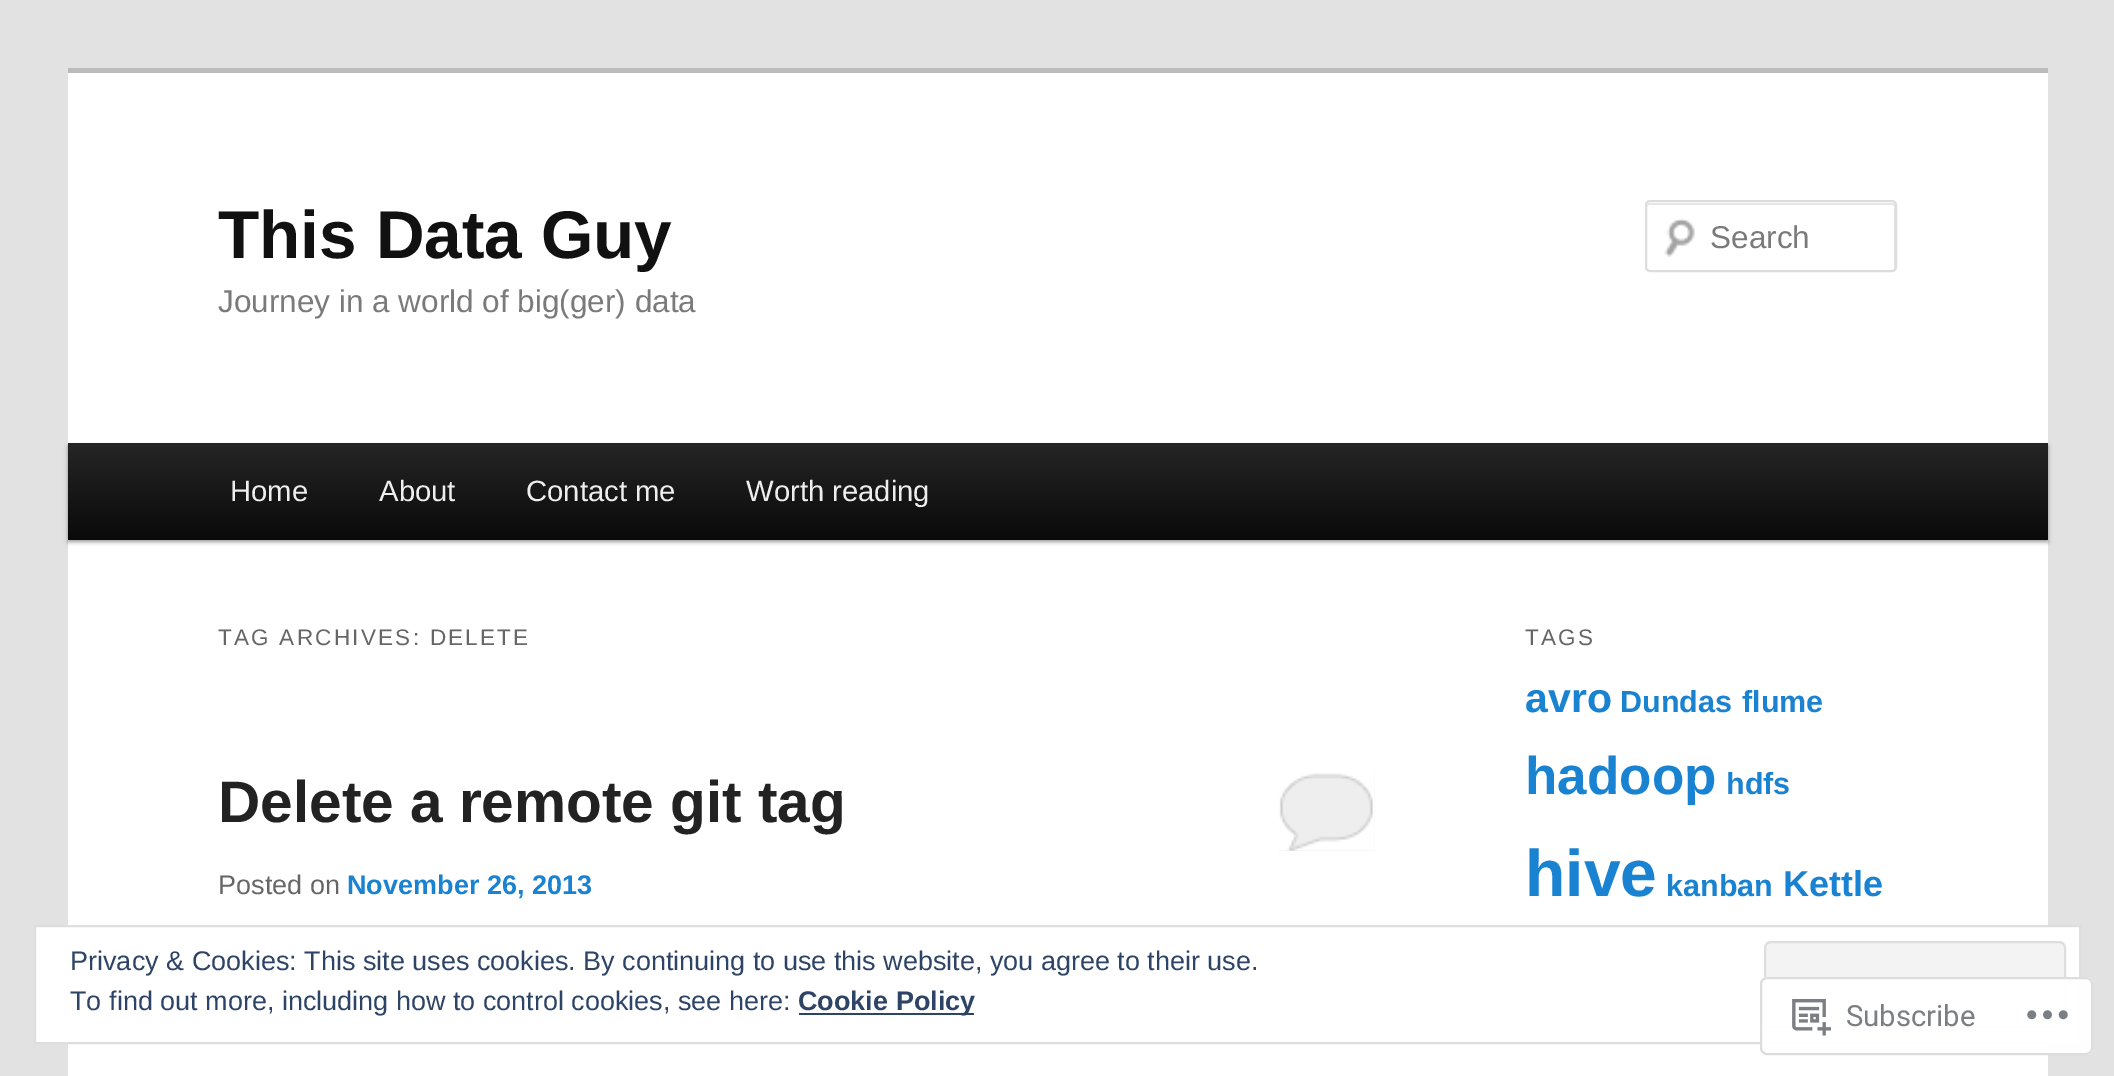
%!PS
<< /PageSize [2114 1076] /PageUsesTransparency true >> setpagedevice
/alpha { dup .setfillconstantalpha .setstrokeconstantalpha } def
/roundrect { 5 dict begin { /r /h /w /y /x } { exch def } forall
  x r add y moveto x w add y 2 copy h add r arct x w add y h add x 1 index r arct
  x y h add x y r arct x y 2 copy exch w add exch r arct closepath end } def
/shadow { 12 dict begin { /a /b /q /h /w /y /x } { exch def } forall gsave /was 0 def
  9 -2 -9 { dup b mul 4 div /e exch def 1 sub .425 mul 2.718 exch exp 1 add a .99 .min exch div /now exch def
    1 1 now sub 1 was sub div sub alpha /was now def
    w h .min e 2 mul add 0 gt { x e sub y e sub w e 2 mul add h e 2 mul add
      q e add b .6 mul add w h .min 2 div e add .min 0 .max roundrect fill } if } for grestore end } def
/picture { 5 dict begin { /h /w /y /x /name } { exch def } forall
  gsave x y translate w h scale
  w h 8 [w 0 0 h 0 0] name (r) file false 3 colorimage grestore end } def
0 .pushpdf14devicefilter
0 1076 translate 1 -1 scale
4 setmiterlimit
0.886 setgray
0 0 2114 1076 rectfill
1 setgray
68 73 1980 1003 rectfill
0.733 setgray
68 68 1980 5 rectfill
/LiberationSans-Bold [67.5 0 0 -67.5 0 0] selectfont
0.067 setgray
218 258 moveto (This Data Guy) show
/LiberationSans-Regular [31.5 0 0 -31.5 0 0] selectfont
0.478 setgray
218 312 moveto (Journey in a world of big\(ger\) data) show
(img1.rgb) 1664 218 31 39 picture
0.902 setgray
newpath 1649 205 moveto 1892 205 lineto 1893 205 1894 206 1894 207 curveto 1894 270 lineto 1895 269 1895 269 1895 268 curveto 1895 205 lineto 1895 204 1894 203 1893 203 curveto 1649 203 lineto 1648 203 1647 204 1647 205 curveto 1647 207 lineto 1647 206 1648 205 1649 205 curveto closepath fill
0.867 setgray
2 setlinewidth
1646 201 250 70 4 roundrect stroke
0.478 setgray
1710 248 moveto (Search) show
0 setgray
68 446 1980 96 0 2 0.4 shadow
gsave newpath 68 443 moveto 2048 443 lineto 2048 540 lineto 68 540 lineto closepath clip newpath
<< /ShadingType 2 /ColorSpace /DeviceRGB /Coords [1058 443 1058 540] /Extend [true true] /Function << /FunctionType 2 /Domain [0 1] /C0 [0.145 0.145 0.145] /C1 [0.039 0.039 0.039] /N 1 >> >> shfill grestore
/LiberationSans-Regular [29.25 0 0 -29.25 0 0] selectfont
0.933 setgray
230 501 moveto (Home) show
379 501 moveto (About) show
526 501 moveto (Contact me) show
746 501 moveto (Worth reading) show
/LiberationSans-Regular [22.5 0 0 -22.5 0 0] selectfont
0.4 setgray
218 645 moveto 2.25 0 (TAG ARCHIVES: DELETE) ashow
/LiberationSans-Bold [58.5 0 0 -58.5 0 0] selectfont
0.133 setgray
218 822 moveto (Delete a remote git tag) show
0.933 setgray
1278 770 97 81 rectfill
(img2.rgb) 1278 770 97 81 picture
/LiberationSans-Regular [27 0 0 -27 0 0] selectfont
0.4 setgray
218 894 moveto (Posted on) show
/LiberationSans-Bold [27 0 0 -27 0 0] selectfont
0.098 0.51 0.82 setrgbcolor
347 894 moveto (November 26, 2013) show
/LiberationSans-Regular [22.5 0 0 -22.5 0 0] selectfont
0.4 setgray
1525 645 moveto 2.25 0 (TAGS) ashow
/LiberationSans-Bold [41 0 0 -41 0 0] selectfont
0.098 0.51 0.82 setrgbcolor
1525 712 moveto (avro) show
/LiberationSans-Bold [30.5 0 0 -30.5 0 0] selectfont
1620 712 moveto (Dundas) show
1742 712 moveto (flume) show
/LiberationSans-Bold [53 0 0 -53 0 0] selectfont
1525 794 moveto (hadoop) show
/LiberationSans-Bold [30.5 0 0 -30.5 0 0] selectfont
1726 794 moveto (hdfs) show
/LiberationSans-Bold [66 0 0 -66 0 0] selectfont
1525 896 moveto (hive) show
/LiberationSans-Bold [30.5 0 0 -30.5 0 0] selectfont
1666 896 moveto (kanban) show
/LiberationSans-Bold [36 0 0 -36 0 0] selectfont
1783 896 moveto (Kettle) show
1 setgray
newpath 35 926 moveto 2080 926 lineto 2080 1043 lineto 35 1043 lineto closepath gsave fill grestore
0.871 setgray
stroke
/LiberationSans-Regular [27 0 0 -27 0 0] selectfont
0.18 0.267 0.404 setrgbcolor
70 970 moveto (Privacy & Cookies: This site uses cookies. By continuing to use this website, you agree to their use.) show
0.953 setgray
1765 942 300 85 6 roundrect gsave fill grestore
0.871 setgray
stroke
0.18 0.267 0.404 setrgbcolor
70 1010 moveto (To find out more, including how to control cookies, see here:) show
799 1013 175 2 rectfill
/LiberationSans-Bold [27 0 0 -27 0 0] selectfont
798 1010 moveto (Cookie Policy) show
0.98 alpha
1 setgray
1760 977 333 78 7 roundrect fill
0.863 0.863 0.871 setrgbcolor
1761 978 331 76 6 roundrect stroke
1 alpha
(img3.rgb) 1792 999 39 37 picture
/Roboto-Regular [29.25 0 0 -29.25 0 0] selectfont
0.482 0.498 0.518 setrgbcolor
1846 1026 moveto (Subscribe) show
(img4.rgb) 2027 1010 41 10 picture
.poppdf14devicefilter showpage
